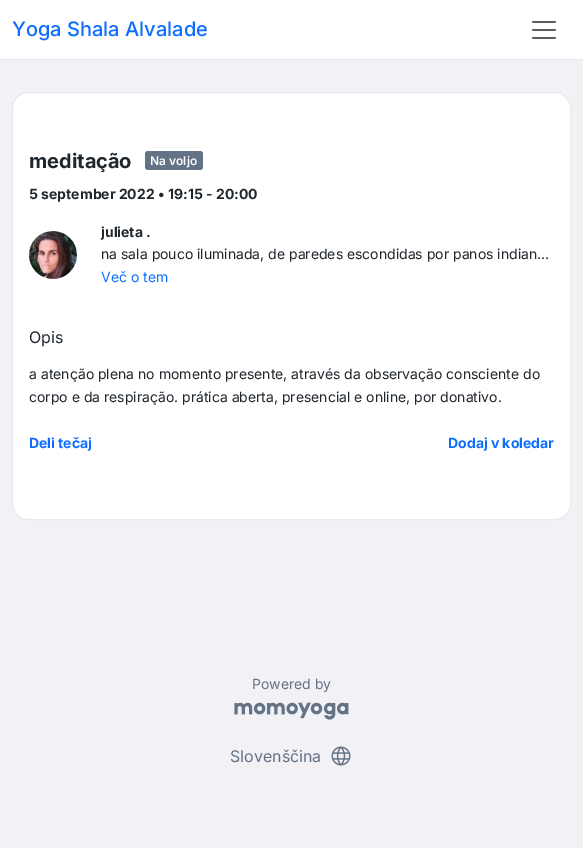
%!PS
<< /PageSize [583 848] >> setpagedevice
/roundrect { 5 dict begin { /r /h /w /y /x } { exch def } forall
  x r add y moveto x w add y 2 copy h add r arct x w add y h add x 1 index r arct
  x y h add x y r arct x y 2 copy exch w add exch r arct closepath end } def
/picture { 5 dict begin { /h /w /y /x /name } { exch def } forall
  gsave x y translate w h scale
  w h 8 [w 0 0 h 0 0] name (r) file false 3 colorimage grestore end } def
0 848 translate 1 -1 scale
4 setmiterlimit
0.949 0.945 0.965 setrgbcolor
0 0 583 848 rectfill
1 setgray
0 0 583 59 rectfill
0.91 0.918 0.929 setrgbcolor
0 59 583 1 rectfill
/Inter-Medium [20 0 0 -20 0 0] selectfont
0.051 0.431 0.992 setrgbcolor
12 36 moveto (Yoga Shala Alvalade) show
(img1.rgb) 532 21 24 18 picture
1 setgray
12.5 92.5 558 427 15.5 roundrect gsave fill grestore
0.91 0.918 0.929 setrgbcolor
stroke
/Inter-Bold [20 0 0 -20 0 0] selectfont
0.122 0.149 0.173 setrgbcolor
29 168 moveto (meditação) show
0.392 0.447 0.525 setrgbcolor
145 151 58 19 3 roundrect fill
/Inter-SemiBold [12 0 0 -12 0 0] selectfont
1 setgray
150 165 moveto (Na voljo) show
/Inter-Bold [14 0 0 -14 0 0] selectfont
0.122 0.149 0.173 setrgbcolor
29 199 moveto (5 september 2022 • 19:15 - 20:00) show
(img2.rgb) 29 231 48 48 picture
101 237 moveto (julieta .) show
/Inter-Regular [14 0 0 -14 0 0] selectfont
101 259 moveto (na sala pouco iluminada, de paredes escondidas por panos indian…) show
0.051 0.431 0.992 setrgbcolor
101 282 moveto (Več o tem) show
/Inter-Regular [16 0 0 -16 0 0] selectfont
0.122 0.149 0.173 setrgbcolor
29 343 moveto (Opis) show
/Inter-Regular [14 0 0 -14 0 0] selectfont
29 379 moveto (a atenção plena no momento presente, através da observação consciente do) show
29 402 moveto (corpo e da respiração. prática aberta, presencial e online, por donativo.) show
/Inter-Bold [14 0 0 -14 0 0] selectfont
0.051 0.431 0.992 setrgbcolor
29 448 moveto (Deli tečaj) show
448 448 moveto (Dodaj v koledar) show
/Inter-Regular [14 0 0 -14 0 0] selectfont
0.392 0.447 0.525 setrgbcolor
252 689 moveto (Powered by) show
(img3.rgb) 234 702 115 18 picture
/Inter-Regular [16 0 0 -16 0 0] selectfont
230 762 moveto (Slovenščina) show
(img4.rgb) 331 746 20 20 picture
showpage
